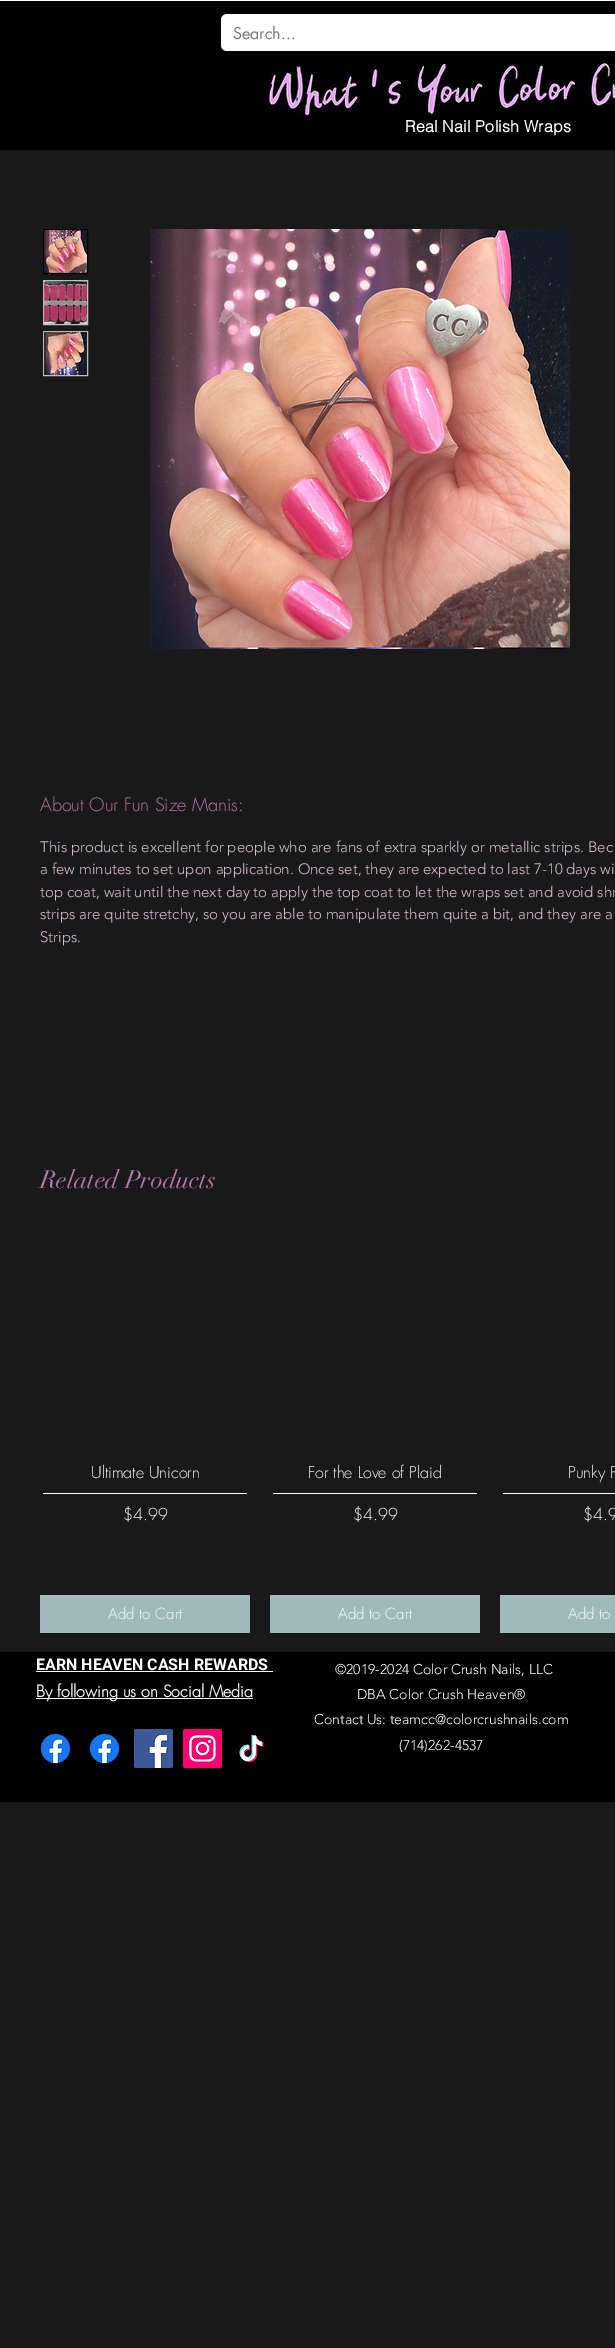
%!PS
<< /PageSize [615 2348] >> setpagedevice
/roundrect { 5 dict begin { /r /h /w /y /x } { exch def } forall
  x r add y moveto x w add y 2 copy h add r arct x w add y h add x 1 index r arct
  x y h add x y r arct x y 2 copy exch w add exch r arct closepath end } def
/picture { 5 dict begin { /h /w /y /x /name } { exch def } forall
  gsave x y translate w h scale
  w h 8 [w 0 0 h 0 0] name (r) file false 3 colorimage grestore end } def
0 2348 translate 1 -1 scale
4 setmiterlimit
1 setgray
0 0 615 2348 rectfill
0 setgray
0 1 615 149 rectfill
1 setgray
221 14 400 37 6 roundrect fill
/futura-Regular [16 0 0 -16 0 0] selectfont
0.471 setgray
233 39 moveto (Search...) show
(img1.rgb) 267 60 348 58 picture
/helvetica-Bold [16 0 0 -16 0 0] selectfont
1 setgray
405 132 moveto 0.2 0 (Real Nail Polish Wraps) ashow
0.098 setgray
0 150 615 2198 rectfill
0 setgray
43.5 229.5 44 44 rectstroke
(img2.rgb) 44 230 43 43 picture
0.749 setgray
43.5 280.5 44 44 rectstroke
(img3.rgb) 44 281 43 43 picture
43.5 331.5 44 44 rectstroke
(img4.rgb) 44 332 43 43 picture
(img5.rgb) 150 229 420 420 picture
/futura-Light [18 0 0 -18 0 0] selectfont
0.722 0.475 0.682 setrgbcolor
40 811 moveto (About Our Fun Size Manis:) show
/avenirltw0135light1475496-Light [15 0 0 -15 0 0] selectfont
0.859 0.733 0.839 setrgbcolor
40 852 moveto (This product is excellent for people who are fans of extra sparkly or metallic strips. Bec) show
40 874 moveto (a few minutes to set upon application. Once set, they are expected to last 7-10 days wi) show
40 897 moveto (top coat, wait until the next day to apply the top coat to let the wraps set and avoid shr) show
40 919 moveto (strips are quite stretchy, so you are able to manipulate them quite a bit, and they are a) show
40 942 moveto (Strips.) show
/didot-Regular [25 0 0 -25 0 0] selectfont
0.722 0.475 0.682 setrgbcolor
40 1188 moveto (Related Products) show
/futura-Light [16 0 0 -16 0 0] selectfont
1 setgray
91 1478 moveto (Ultimate Unicorn) show
43 1493 204 1 rectfill
123 1520 moveto ($4.99) show
0.624 0.725 0.741 setrgbcolor
40 1595 210 38 rectfill
/futura-Light [15 0 0 -15 0 0] selectfont
1 setgray
108 1619 moveto (Add to Cart) show
/futura-Light [16 0 0 -16 0 0] selectfont
308 1478 moveto (For the Love of Plaid) show
273 1493 204 1 rectfill
353 1520 moveto ($4.99) show
0.624 0.725 0.741 setrgbcolor
270 1595 210 38 rectfill
/futura-Light [15 0 0 -15 0 0] selectfont
1 setgray
338 1619 moveto (Add to Cart) show
/futura-Light [16 0 0 -16 0 0] selectfont
568 1478 moveto (Punky P) show
503 1493 112 1 rectfill
583 1520 moveto ($4.9) show
0.624 0.725 0.741 setrgbcolor
500 1595 115 38 rectfill
/futura-Light [15 0 0 -15 0 0] selectfont
1 setgray
568 1619 moveto (Add to) show
0 setgray
0 1652 615 150 rectfill
/Heebo-Bold [16 0 0 -16 0 0] selectfont
1 setgray
36 1670 moveto (EARN HEAVEN CASH REWARDS) show
36 1671 237 1 rectfill
36 1698 217 1 rectfill
/futura-Bold [16 0 0 -16 0 0] selectfont
36 1697 moveto (By following us on Social Media) show
/avenirltw0135light1475496-Light [14 0 0 -14 0 0] selectfont
335 1674 moveto (©2019-2024 Color Crush Nails, LLC) show
357 1699 moveto (DBA Color Crush Heaven®) show
314 1724 moveto (Contact Us: teamcc@colorcrushnails.com) show
399 1750 moveto (\(714\)262-4537) show
(img6.rgb) 40 1733 31 31 picture
(img6.rgb) 89 1733 31 31 picture
(img7.rgb) 134 1729 39 39 picture
(img8.rgb) 183 1729 39 39 picture
(img9.rgb) 239 1735 25 28 picture
showpage
